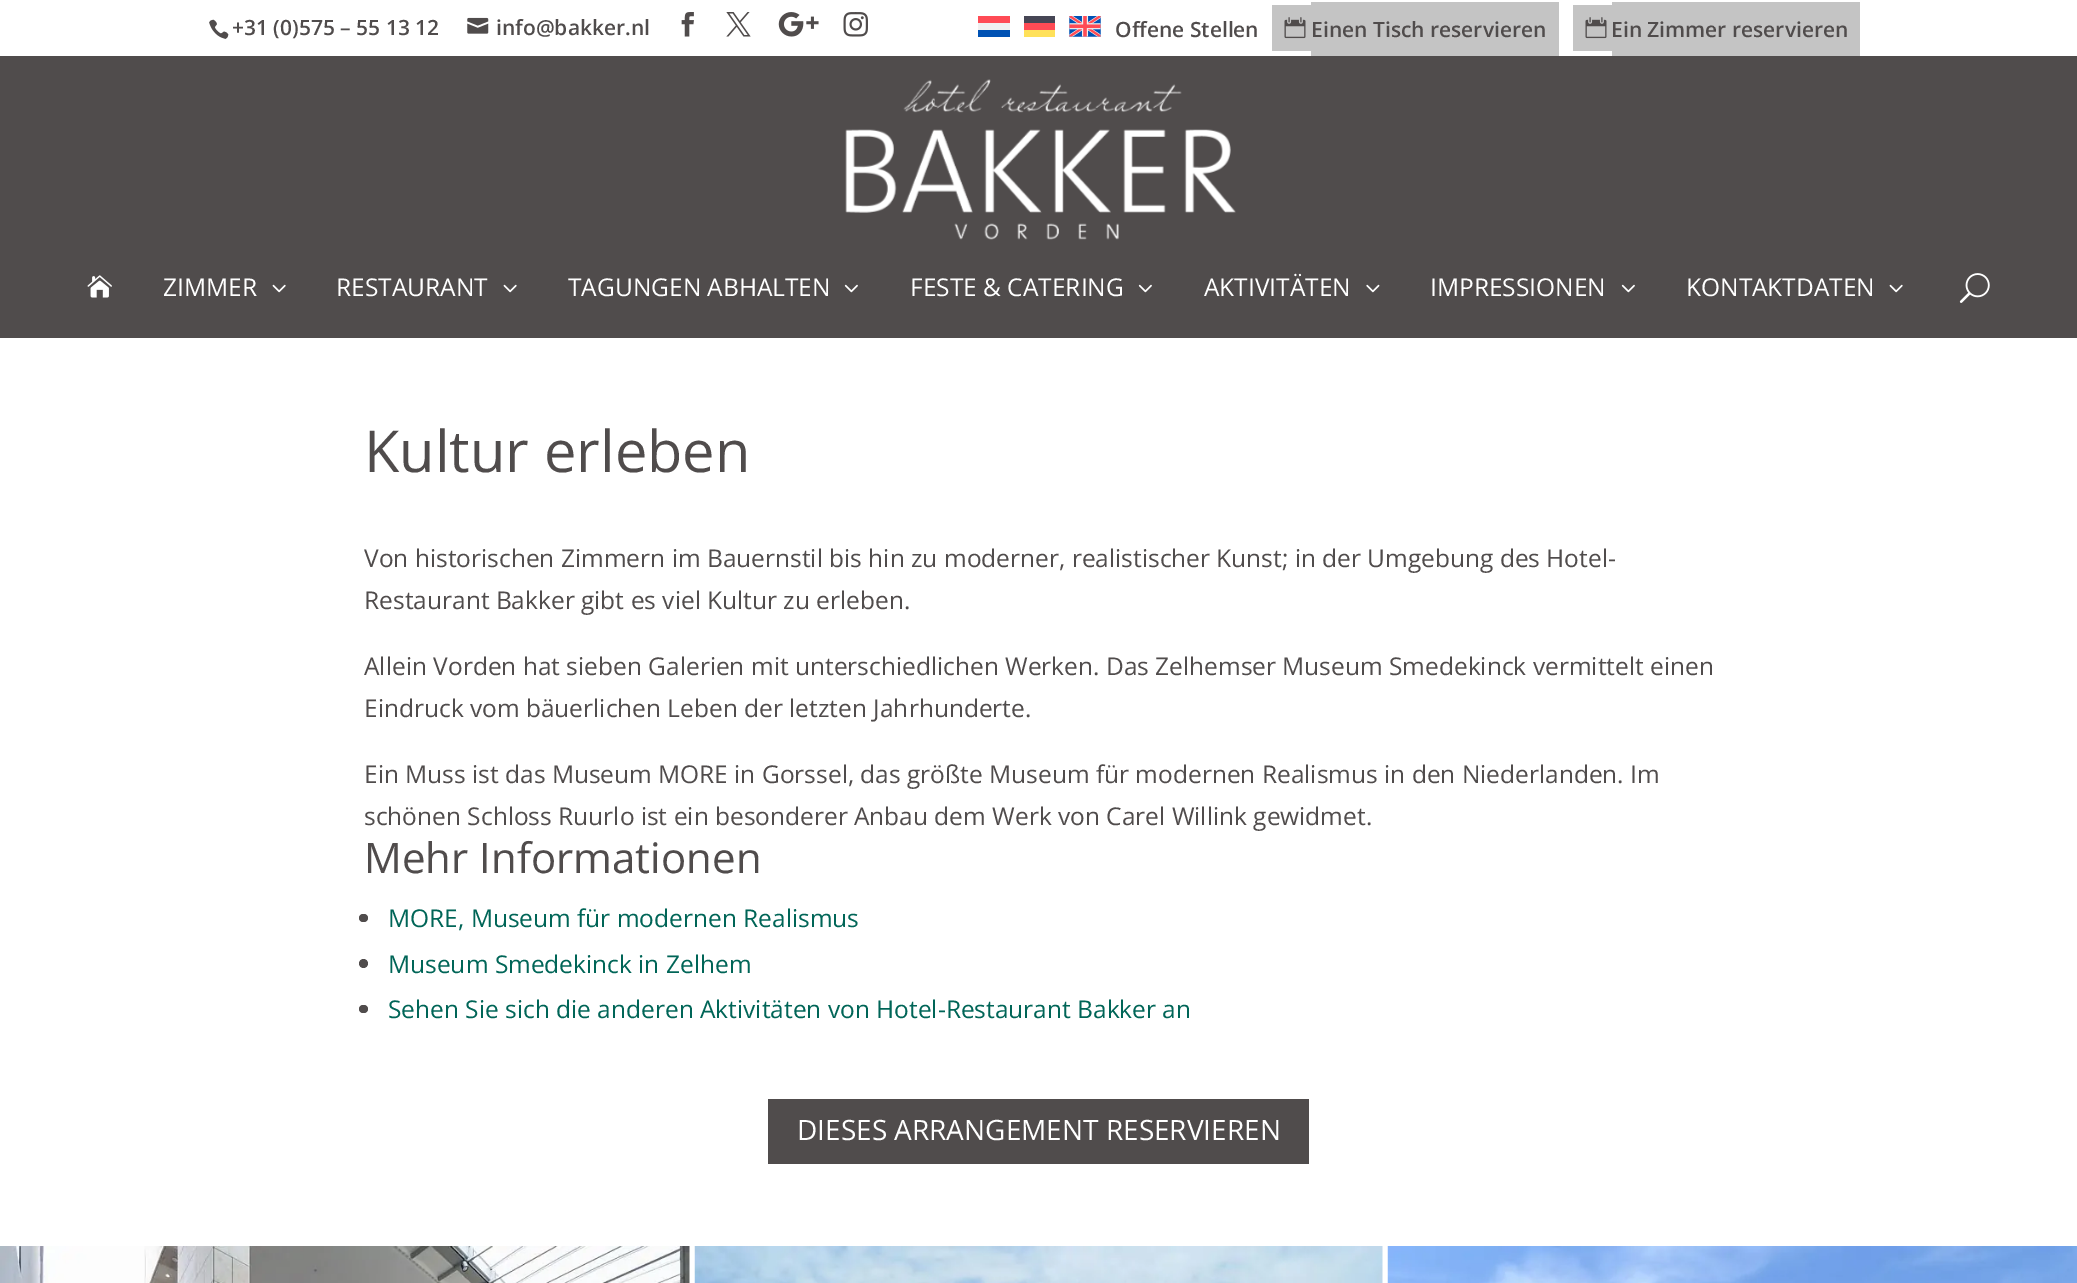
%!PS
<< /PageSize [2077 1283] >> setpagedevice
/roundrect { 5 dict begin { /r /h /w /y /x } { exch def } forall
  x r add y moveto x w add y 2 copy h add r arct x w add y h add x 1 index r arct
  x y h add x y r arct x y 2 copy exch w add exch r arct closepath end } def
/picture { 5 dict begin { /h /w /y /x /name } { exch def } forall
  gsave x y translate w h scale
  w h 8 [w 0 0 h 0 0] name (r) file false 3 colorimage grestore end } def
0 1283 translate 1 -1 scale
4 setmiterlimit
1 setgray
0 0 2077 1283 rectfill
(img1.rgb) 209 19 20 20 picture
/OpenSans-SemiBold [21 0 0 -21 0 0] selectfont
0.314 0.298 0.298 setrgbcolor
232 35 moveto (+31 \(0\)575 – 55 13 12) show
(img2.rgb) 467 17 22 17 picture
496 35 moveto (info@bakker.nl) show
(img3.rgb) 681 12 13 25 picture
(img4.rgb) 726 12 25 25 picture
(img5.rgb) 778 12 41 25 picture
(img6.rgb) 843 12 25 25 picture
1 0.294 0.333 setrgbcolor
978 16 32 7 rectfill
0.941 setgray
978 23 32 7 rectfill
0 0.322 0.706 setrgbcolor
978 30 32 7 rectfill
0.275 0.275 0.333 setrgbcolor
1024 16 31 7 rectfill
1 0.294 0.333 setrgbcolor
1024 23 31 7 rectfill
1 0.882 0.353 setrgbcolor
1024 30 31 7 rectfill
(img7.rgb) 1069 16 32 21 picture
0.314 0.298 0.298 setrgbcolor
1115 37 moveto (Offene Stellen) show
0.769 setgray
1272 5 39 46 rectfill
(img8.rgb) 1284 17 22 22 picture
1311 2 248 54 rectfill
0.314 0.298 0.298 setrgbcolor
1311 37 moveto (Einen Tisch reservieren) show
0.769 setgray
1573 5 39 46 rectfill
(img8.rgb) 1585 17 22 22 picture
1612 2 248 54 rectfill
0.314 0.298 0.298 setrgbcolor
1611 37 moveto (Ein Zimmer reservieren) show
0 56 2077 282 rectfill
(img9.rgb) 845 79 391 161 picture
(img10.rgb) 87 275 25 23 picture
/OpenSans-Regular [24.5 0 0 -24.5 0 0] selectfont
1 setgray
163 296 moveto (ZIMMER) show
(img11.rgb) 272 284 14 9 picture
336 296 moveto (RESTAURANT) show
(img11.rgb) 503 284 14 9 picture
568 296 moveto (TAGUNGEN ABHALTEN) show
(img12.rgb) 844 284 14 9 picture
910 296 moveto (FESTE & CATERING) show
(img12.rgb) 1138 284 14 9 picture
1204 296 moveto (AKTIVITÄTEN) show
(img13.rgb) 1366 284 14 9 picture
1430 296 moveto (IMPRESSIONEN) show
(img12.rgb) 1621 284 14 9 picture
1686 296 moveto (KONTAKTDATEN) show
(img11.rgb) 1889 284 14 9 picture
(img14.rgb) 1959 273 31 30 picture
/OpenSans-Regular [57.75 0 0 -57.75 0 0] selectfont
0.314 0.298 0.298 setrgbcolor
364 472 moveto (Kultur erleben) show
/OpenSans-Regular [24.5 0 0 -24.5 0 0] selectfont
364 567 moveto (Von historischen Zimmern im Bauernstil bis hin zu moderner, realistischer Kunst; in der Umgebung des Hotel-) show
364 609 moveto (Restaurant Bakker gibt es viel Kultur zu erleben.) show
364 675 moveto (Allein Vorden hat sieben Galerien mit unterschiedlichen Werken. Das Zelhemser Museum Smedekinck vermittelt einen) show
364 717 moveto (Eindruck vom bäuerlichen Leben der letzten Jahrhunderte.) show
364 783 moveto (Ein Muss ist das Museum MORE in Gorssel, das größte Museum für modernen Realismus in den Niederlanden. Im) show
364 825 moveto (schönen Schloss Ruurlo ist ein besonderer Anbau dem Werk von Carel Willink gewidmet.) show
/OpenSans-Regular [42 0 0 -42 0 0] selectfont
364 873 moveto (Mehr Informationen) show
359 914 9 8 4 roundrect fill
/OpenSans-Regular [24.5 0 0 -24.5 0 0] selectfont
0 0.396 0.341 setrgbcolor
388 927 moveto (MORE, Museum für modernen Realismus) show
0.314 0.298 0.298 setrgbcolor
newpath 363.5 963.5 4.5 0 360 arc closepath fill
0 0.396 0.341 setrgbcolor
388 973 moveto (Museum Smedekinck in Zelhem) show
0.314 0.298 0.298 setrgbcolor
359 1005 9 8 4 roundrect fill
0 0.396 0.341 setrgbcolor
388 1018 moveto (Sehen Sie sich die anderen Aktivitäten von Hotel-Restaurant Bakker an) show
0.314 0.298 0.298 setrgbcolor
768 1099 541 65 rectfill
/OpenSans-Regular [28 0 0 -28 0 0] selectfont
1 setgray
797 1140 moveto (DIESES ARRANGEMENT RESERVIEREN) show
(img15.rgb) 0 1246 690 37 picture
(img16.rgb) 694 1246 689 37 picture
(img17.rgb) 1387 1246 690 37 picture
showpage
